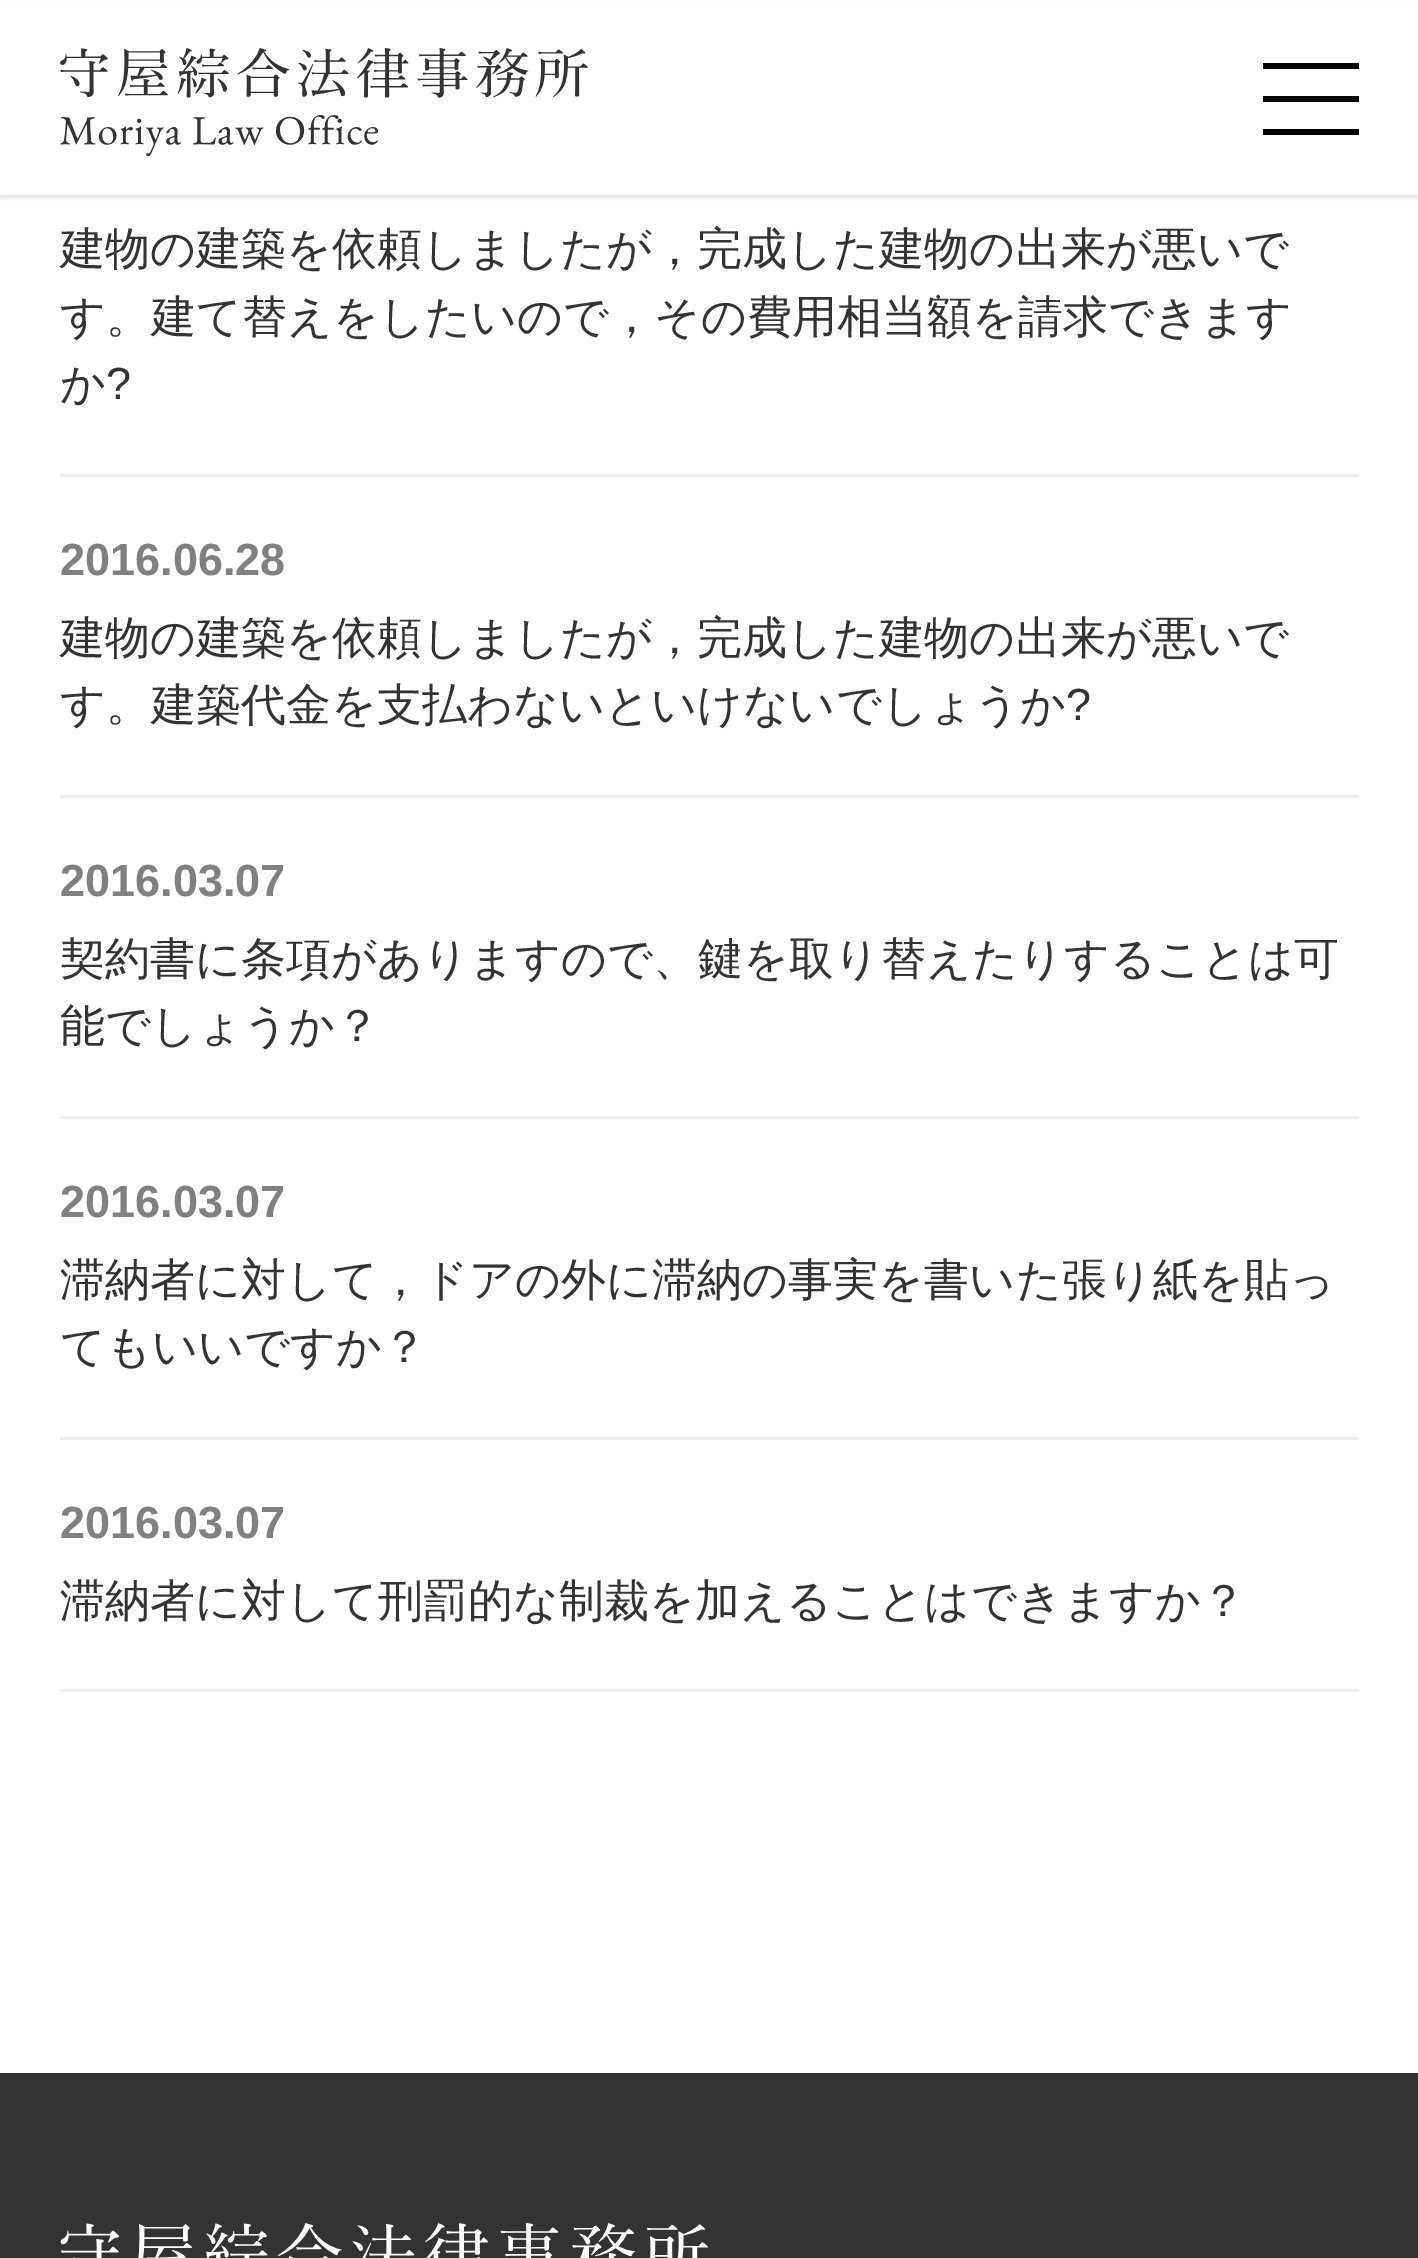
%!PS
<< /PageSize [1418 2258] /PageUsesTransparency true >> setpagedevice
/alpha { dup .setfillconstantalpha .setstrokeconstantalpha } def
/roundrect { 5 dict begin { /r /h /w /y /x } { exch def } forall
  x r add y moveto x w add y 2 copy h add r arct x w add y h add x 1 index r arct
  x y h add x y r arct x y 2 copy exch w add exch r arct closepath end } def
/shadow { 12 dict begin { /a /b /q /h /w /y /x } { exch def } forall gsave /was 0 def
  9 -2 -9 { dup b mul 4 div /e exch def 1 sub .425 mul 2.718 exch exp 1 add a .99 .min exch div /now exch def
    1 1 now sub 1 was sub div sub alpha /was now def
    w h .min e 2 mul add 0 gt { x e sub y e sub w e 2 mul add h e 2 mul add
      q e add b .6 mul add w h .min 2 div e add .min 0 .max roundrect fill } if } for grestore end } def
/picture { 5 dict begin { /h /w /y /x /name } { exch def } forall
  gsave x y translate w h scale
  w h 8 [w 0 0 h 0 0] name (r) file false 3 colorimage grestore end } def
0 .pushpdf14devicefilter
0 2258 translate 1 -1 scale
4 setmiterlimit
1 setgray
0 0 1418 2258 rectfill
0 setgray
0 3 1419 195 0 1.5 0.1 shadow
1 setgray
0 1 1418 194 rectfill
(img1.rgb) 60 48 528 108 picture
0 setgray
1263 63 96 6 rectfill
1263 96 96 6 rectfill
1263 129 96 6 rectfill
0.933 setgray
60 474 1299 3 rectfill
/WenQuanYiZenHei-Medium [45 0 0 -45 0 0] selectfont
0.2 setgray
60 264 moveto (建物の建築を依頼しましたが，完成した建物の出来が悪いで) show
60 332 moveto (す。建て替えをしたいので，その費用相当額を請求できます) show
60 399 moveto (か) show
/LiberationSans-Regular [45 0 0 -45 0 0] selectfont
106 399 moveto (?) show
0.933 setgray
60 795 1299 3 rectfill
/LiberationSans-Bold [45 0 0 -45 0 0] selectfont
0.502 setgray
60 575 moveto (2016.06.28) show
/WenQuanYiZenHei-Medium [45 0 0 -45 0 0] selectfont
0.2 setgray
60 653 moveto (建物の建築を依頼しましたが，完成した建物の出来が悪いで) show
60 720 moveto (す。建築代金を支払わないといけないでしょうか) show
/LiberationSans-Regular [45 0 0 -45 0 0] selectfont
1066 720 moveto (?) show
0.933 setgray
60 1116 1299 3 rectfill
/LiberationSans-Bold [45 0 0 -45 0 0] selectfont
0.502 setgray
60 896 moveto (2016.03.07) show
/WenQuanYiZenHei-Medium [45 0 0 -45 0 0] selectfont
0.2 setgray
60 974 moveto (契約書に条項がありますので、鍵を取り替えたりすることは可) show
60 1041 moveto (能でしょうか？) show
0.933 setgray
60 1437 1299 3 rectfill
/LiberationSans-Bold [45 0 0 -45 0 0] selectfont
0.502 setgray
60 1217 moveto (2016.03.07) show
/WenQuanYiZenHei-Medium [45 0 0 -45 0 0] selectfont
0.2 setgray
60 1295 moveto (滞納者に対して，ドアの外に滞納の事実を書いた張り紙を貼っ) show
60 1362 moveto (てもいいですか？) show
0.933 setgray
60 1689 1299 3 rectfill
/LiberationSans-Bold [45 0 0 -45 0 0] selectfont
0.502 setgray
60 1538 moveto (2016.03.07) show
/WenQuanYiZenHei-Medium [45 0 0 -45 0 0] selectfont
0.2 setgray
60 1616 moveto (滞納者に対して刑罰的な制裁を加えることはできますか？) show
0 2073 1418 185 rectfill
(img2.rgb) 60 2223 648 35 picture
.poppdf14devicefilter showpage
